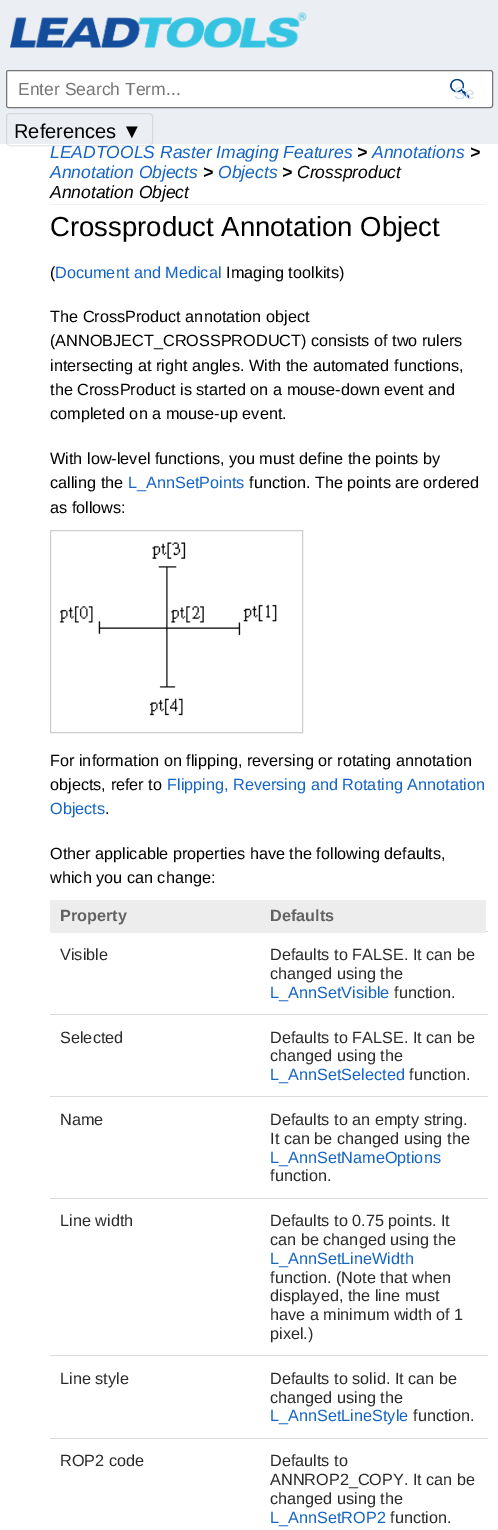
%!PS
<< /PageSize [498 1530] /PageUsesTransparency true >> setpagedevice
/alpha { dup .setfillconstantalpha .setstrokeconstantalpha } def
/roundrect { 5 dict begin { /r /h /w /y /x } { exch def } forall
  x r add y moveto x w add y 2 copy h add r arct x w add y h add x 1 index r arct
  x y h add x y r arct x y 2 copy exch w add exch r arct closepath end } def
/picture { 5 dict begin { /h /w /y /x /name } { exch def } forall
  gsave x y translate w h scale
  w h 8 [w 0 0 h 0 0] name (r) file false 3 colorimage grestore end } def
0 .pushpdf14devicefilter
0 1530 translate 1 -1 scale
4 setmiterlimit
1 setgray
0 0 498 1530 rectfill
0.922 0.933 0.953 setrgbcolor
0 0 498 144 rectfill
(img1.rgb) 10 12 297 36 picture
1 setgray
6.5 70.5 486 37 2 roundrect gsave fill grestore
0.463 setgray
stroke
/LiberationSans-Regular [17.5 0 0 -17.5 0 0] selectfont
0.459 setgray
18 95 moveto (Enter Search Term...) show
(img2.rgb) 450 79 20 19 picture
/LiberationSans-Regular [17 0 0 -17 0 0] selectfont
0.827 0.871 0.918 setrgbcolor
454 99 moveto (Se) show
/LiberationSans-Italic [17.5 0 0 -17.5 0 0] selectfont
0.075 0.392 0.769 setrgbcolor
50 158 moveto (LEADTOOLS Raster Imaging Features) show
0.2 alpha
0.502 setgray
6.5 113.5 146 32 3.5 roundrect stroke
/LiberationSans-Regular [20 0 0 -20 0 0] selectfont
1 alpha
0 setgray
14 138 moveto (References ▼) show
0.945 setgray
50 204 436 1 rectfill
/LiberationSans-BoldItalic [17.5 0 0 -17.5 0 0] selectfont
0 setgray
357 158 moveto (>) show
/LiberationSans-Italic [17.5 0 0 -17.5 0 0] selectfont
0.075 0.392 0.769 setrgbcolor
372 158 moveto (Annotations) show
/LiberationSans-BoldItalic [17.5 0 0 -17.5 0 0] selectfont
0 setgray
470 158 moveto (>) show
/LiberationSans-Italic [17.5 0 0 -17.5 0 0] selectfont
0.075 0.392 0.769 setrgbcolor
50 178 moveto (Annotation Objects) show
/LiberationSans-BoldItalic [17.5 0 0 -17.5 0 0] selectfont
0 setgray
203 178 moveto (>) show
/LiberationSans-Italic [17.5 0 0 -17.5 0 0] selectfont
0.075 0.392 0.769 setrgbcolor
218 178 moveto (Objects) show
/LiberationSans-BoldItalic [17.5 0 0 -17.5 0 0] selectfont
0 setgray
282 178 moveto (>) show
/LiberationSans-Italic [17.5 0 0 -17.5 0 0] selectfont
297 178 moveto (Crossproduct) show
50 198 moveto (Annotation Object) show
/LiberationSans-Regular [27.5 0 0 -27.5 0 0] selectfont
50 236 moveto (Crossproduct Annotation Object) show
/LiberationSans-Regular [16.25 0 0 -16.25 0 0] selectfont
50 278 moveto (\() show
0.075 0.392 0.769 setrgbcolor
55 278 moveto (Document and Medical) show
0 setgray
226 278 moveto (Imaging toolkits\)) show
50 322 moveto (The CrossProduct annotation object) show
50 346 moveto (\(ANNOBJECT_CROSSPRODUCT\) consists of two rulers) show
50 371 moveto (intersecting at right angles. With the automated functions,) show
50 395 moveto (the CrossProduct is started on a mouse-down event and) show
50 419 moveto (completed on a mouse-up event.) show
50 464 moveto (With low-level functions, you must define the points by) show
50 488 moveto (calling the) show
0.075 0.392 0.769 setrgbcolor
128 488 moveto (L_AnnSetPoints) show
0 setgray
249 488 moveto (function. The points are ordered) show
50 513 moveto (as follows:) show
0.808 setgray
50.5 530.5 252 202 rectstroke
(img3.rgb) 59 542 218 174 picture
0 setgray
50 766 moveto (For information on flipping, reversing or rotating annotation) show
50 790 moveto (objects, refer to) show
0.075 0.392 0.769 setrgbcolor
167 790 moveto (Flipping, Reversing and Rotating Annotation) show
50 814 moveto (Objects) show
0 setgray
105 814 moveto (.) show
50 859 moveto (Other applicable properties have the following defaults,) show
50 883 moveto (which you can change:) show
0.929 setgray
50 900 436 33 rectfill
/LiberationSans-Bold [16.25 0 0 -16.25 0 0] selectfont
0.388 setgray
60 921 moveto (Property) show
0.859 setgray
486 931 2 1 rectfill
0.388 setgray
270 921 moveto (Defaults) show
/LiberationSans-Regular [16.25 0 0 -16.25 0 0] selectfont
0.165 setgray
60 960 moveto (Visible) show
0.859 setgray
50 1014 438 1 rectfill
0.165 setgray
270 960 moveto (Defaults to FALSE. It can be) show
270 979 moveto (changed using the) show
0.075 0.392 0.769 setrgbcolor
270 998 moveto (L_AnnSetVisible) show
0.165 setgray
394 998 moveto (function.) show
60 1043 moveto (Selected) show
0.859 setgray
50 1096 438 1 rectfill
0.165 setgray
270 1043 moveto (Defaults to FALSE. It can be) show
270 1061 moveto (changed using the) show
0.075 0.392 0.769 setrgbcolor
270 1080 moveto (L_AnnSetSelected) show
0.165 setgray
409 1080 moveto (function.) show
60 1125 moveto (Name) show
0.859 setgray
50 1198 438 1 rectfill
0.165 setgray
270 1125 moveto (Defaults to an empty string.) show
270 1144 moveto (It can be changed using the) show
0.075 0.392 0.769 setrgbcolor
270 1163 moveto (L_AnnSetNameOptions) show
0.165 setgray
270 1181 moveto (function.) show
60 1226 moveto (Line width) show
0.859 setgray
50 1355 438 1 rectfill
0.165 setgray
270 1226 moveto (Defaults to 0.75 points. It) show
270 1245 moveto (can be changed using the) show
0.075 0.392 0.769 setrgbcolor
270 1264 moveto (L_AnnSetLineWidth) show
0.165 setgray
270 1283 moveto (function. \(Note that when) show
270 1301 moveto (displayed, the line must) show
270 1320 moveto (have a minimum width of 1) show
270 1339 moveto (pixel.\)) show
60 1384 moveto (Line style) show
0.859 setgray
50 1438 438 1 rectfill
0.165 setgray
270 1384 moveto (Defaults to solid. It can be) show
270 1403 moveto (changed using the) show
0.075 0.392 0.769 setrgbcolor
270 1421 moveto (L_AnnSetLineStyle) show
0.165 setgray
413 1421 moveto (function.) show
60 1466 moveto (ROP2 code) show
270 1466 moveto (Defaults to) show
270 1485 moveto (ANNROP2_COPY. It can be) show
270 1504 moveto (changed using the) show
0.075 0.392 0.769 setrgbcolor
270 1523 moveto (L_AnnSetROP2) show
0.165 setgray
390 1523 moveto (function.) show
.poppdf14devicefilter showpage
